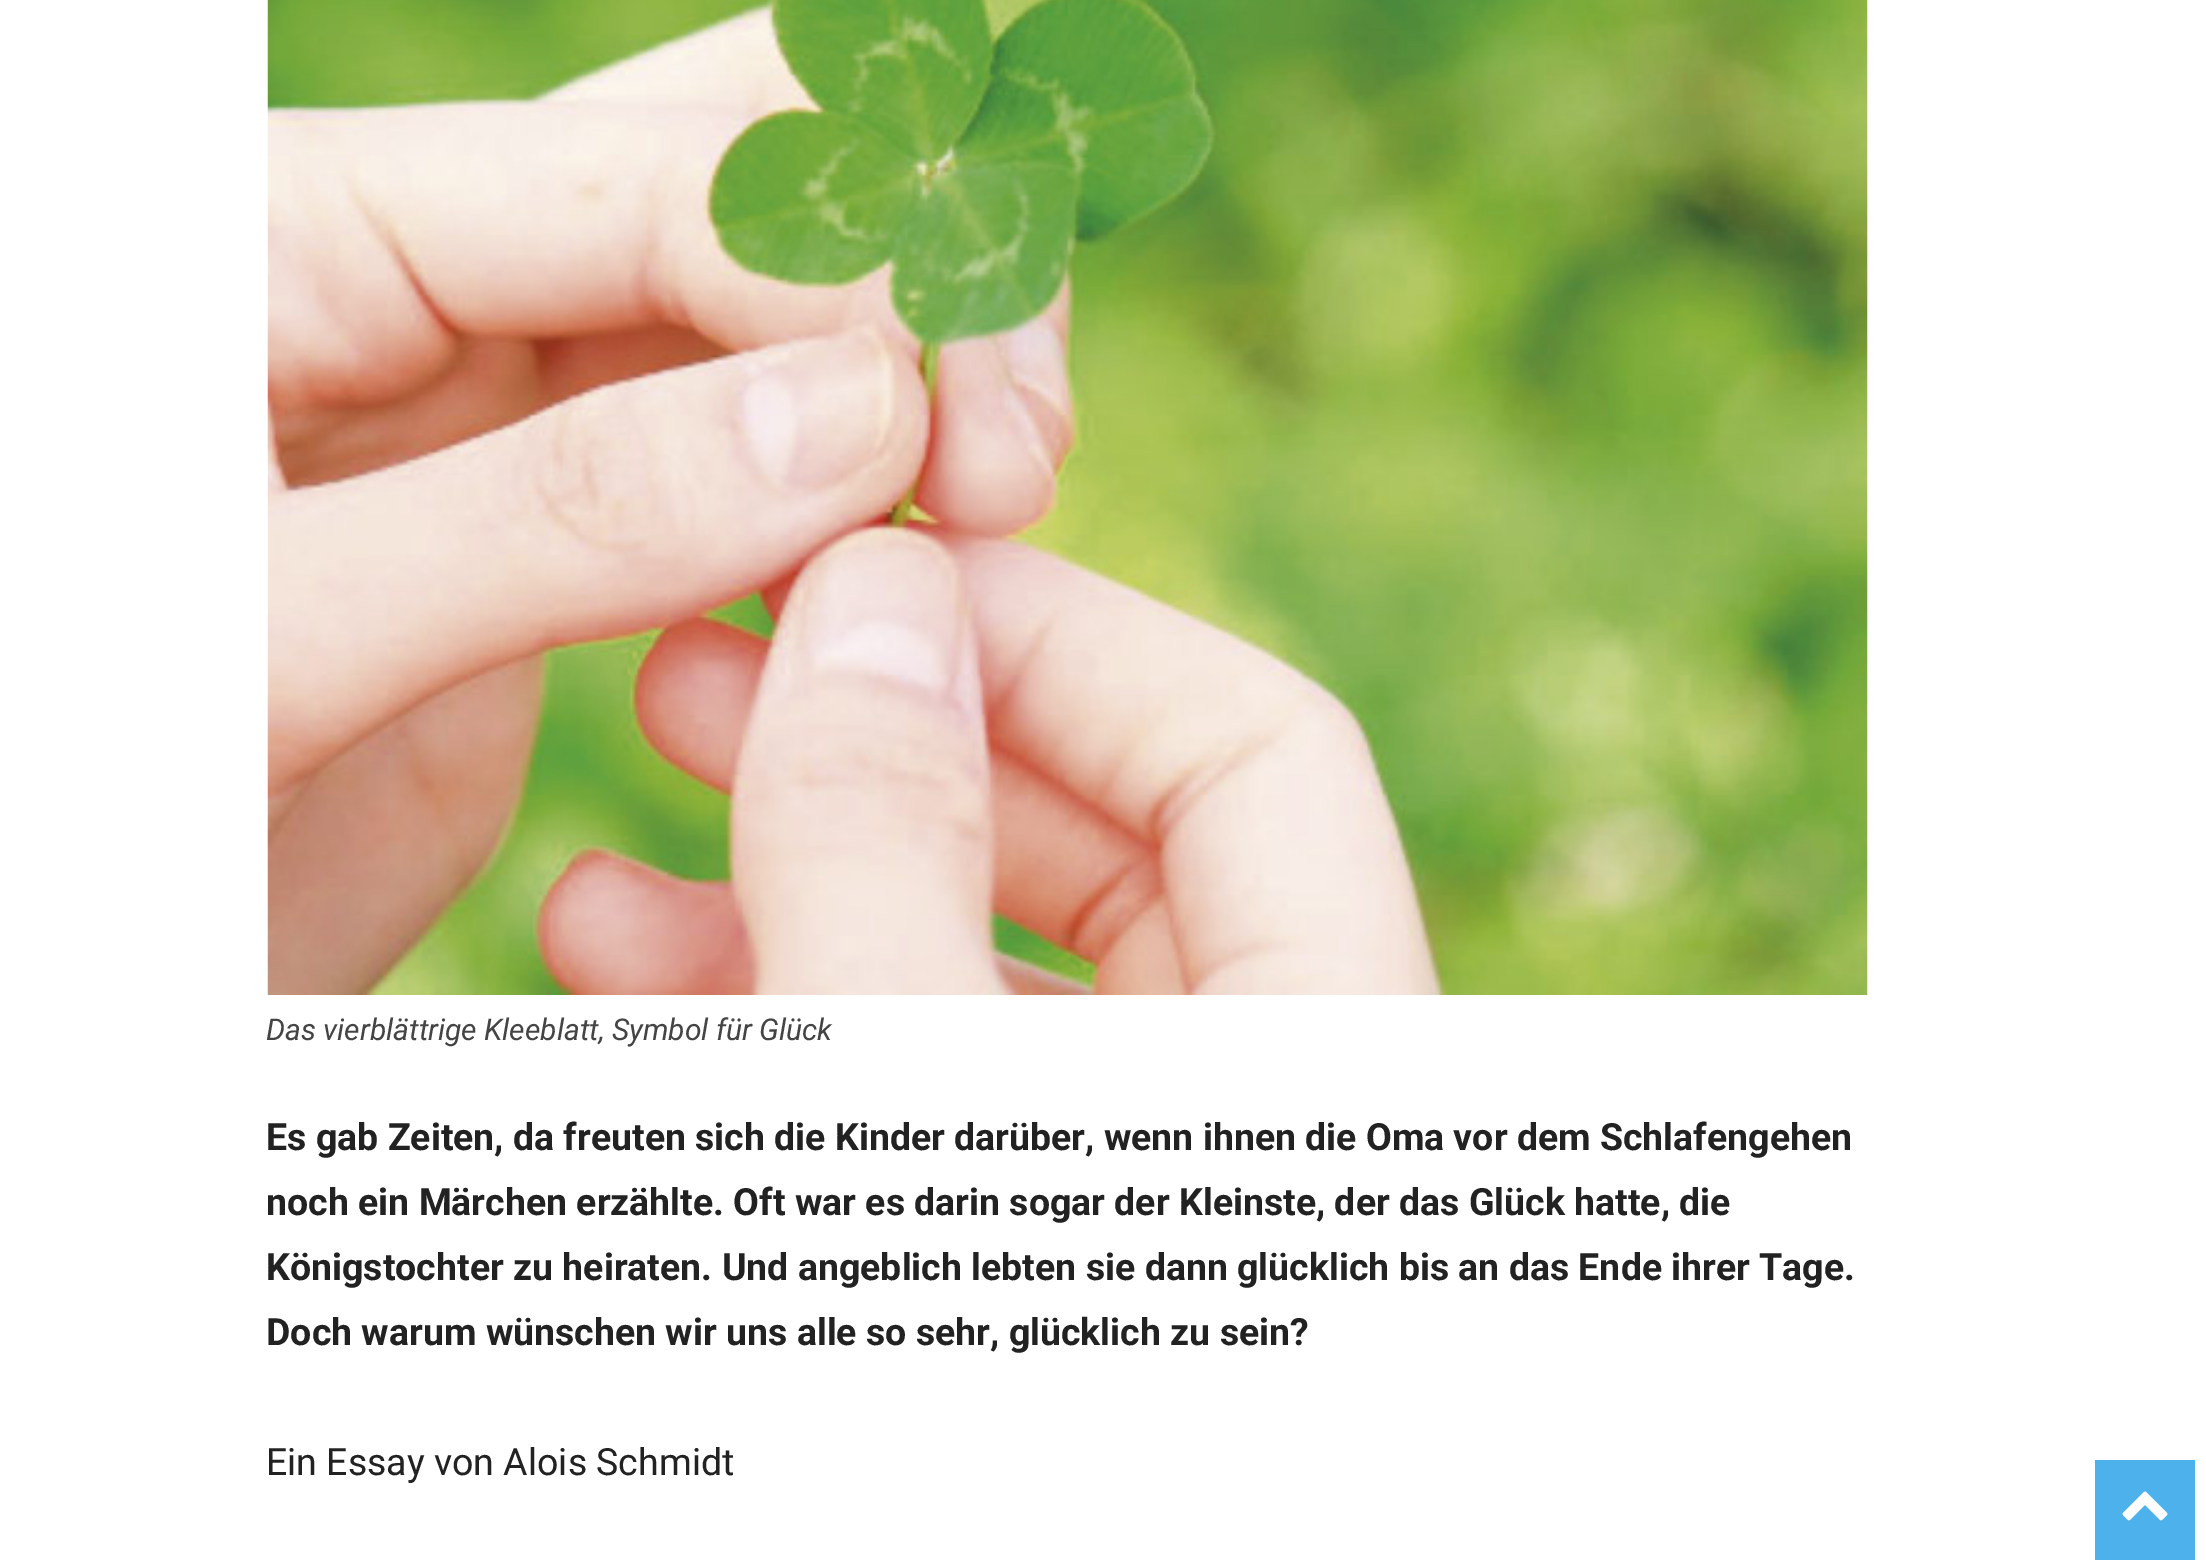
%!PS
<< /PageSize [2206 1568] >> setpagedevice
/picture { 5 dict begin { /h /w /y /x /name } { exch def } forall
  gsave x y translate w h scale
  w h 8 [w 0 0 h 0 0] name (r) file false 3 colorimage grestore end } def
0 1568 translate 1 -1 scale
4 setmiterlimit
1 setgray
0 0 2206 1568 rectfill
(img1.rgb) 267 0 1601 995 picture
/Roboto-Italic [30 0 0 -30 0 0] selectfont
0.267 setgray
266 1040 moveto (Das vierblättrige Kleeblatt, Symbol für Glück) show
/Roboto-Bold [37.5 0 0 -37.5 0 0] selectfont
0.133 setgray
266 1150 moveto (Es gab Zeiten, da freuten sich die Kinder darüber, wenn ihnen die Oma vor dem Schlafengehen) show
266 1215 moveto (noch ein Märchen erzählte. Oft war es darin sogar der Kleinste, der das Glück hatte, die) show
266 1280 moveto (Königstochter zu heiraten. Und angeblich lebten sie dann glücklich bis an das Ende ihrer Tage.) show
266 1345 moveto (Doch warum wünschen wir uns alle so sehr, glücklich zu sein?) show
/Roboto-Regular [37.5 0 0 -37.5 0 0] selectfont
266 1475 moveto (Ein Essay von Alois Schmidt) show
0.302 0.698 0.925 setrgbcolor
2095 1460 100 100 rectfill
(img2.rgb) 2122 1491 46 30 picture
showpage
